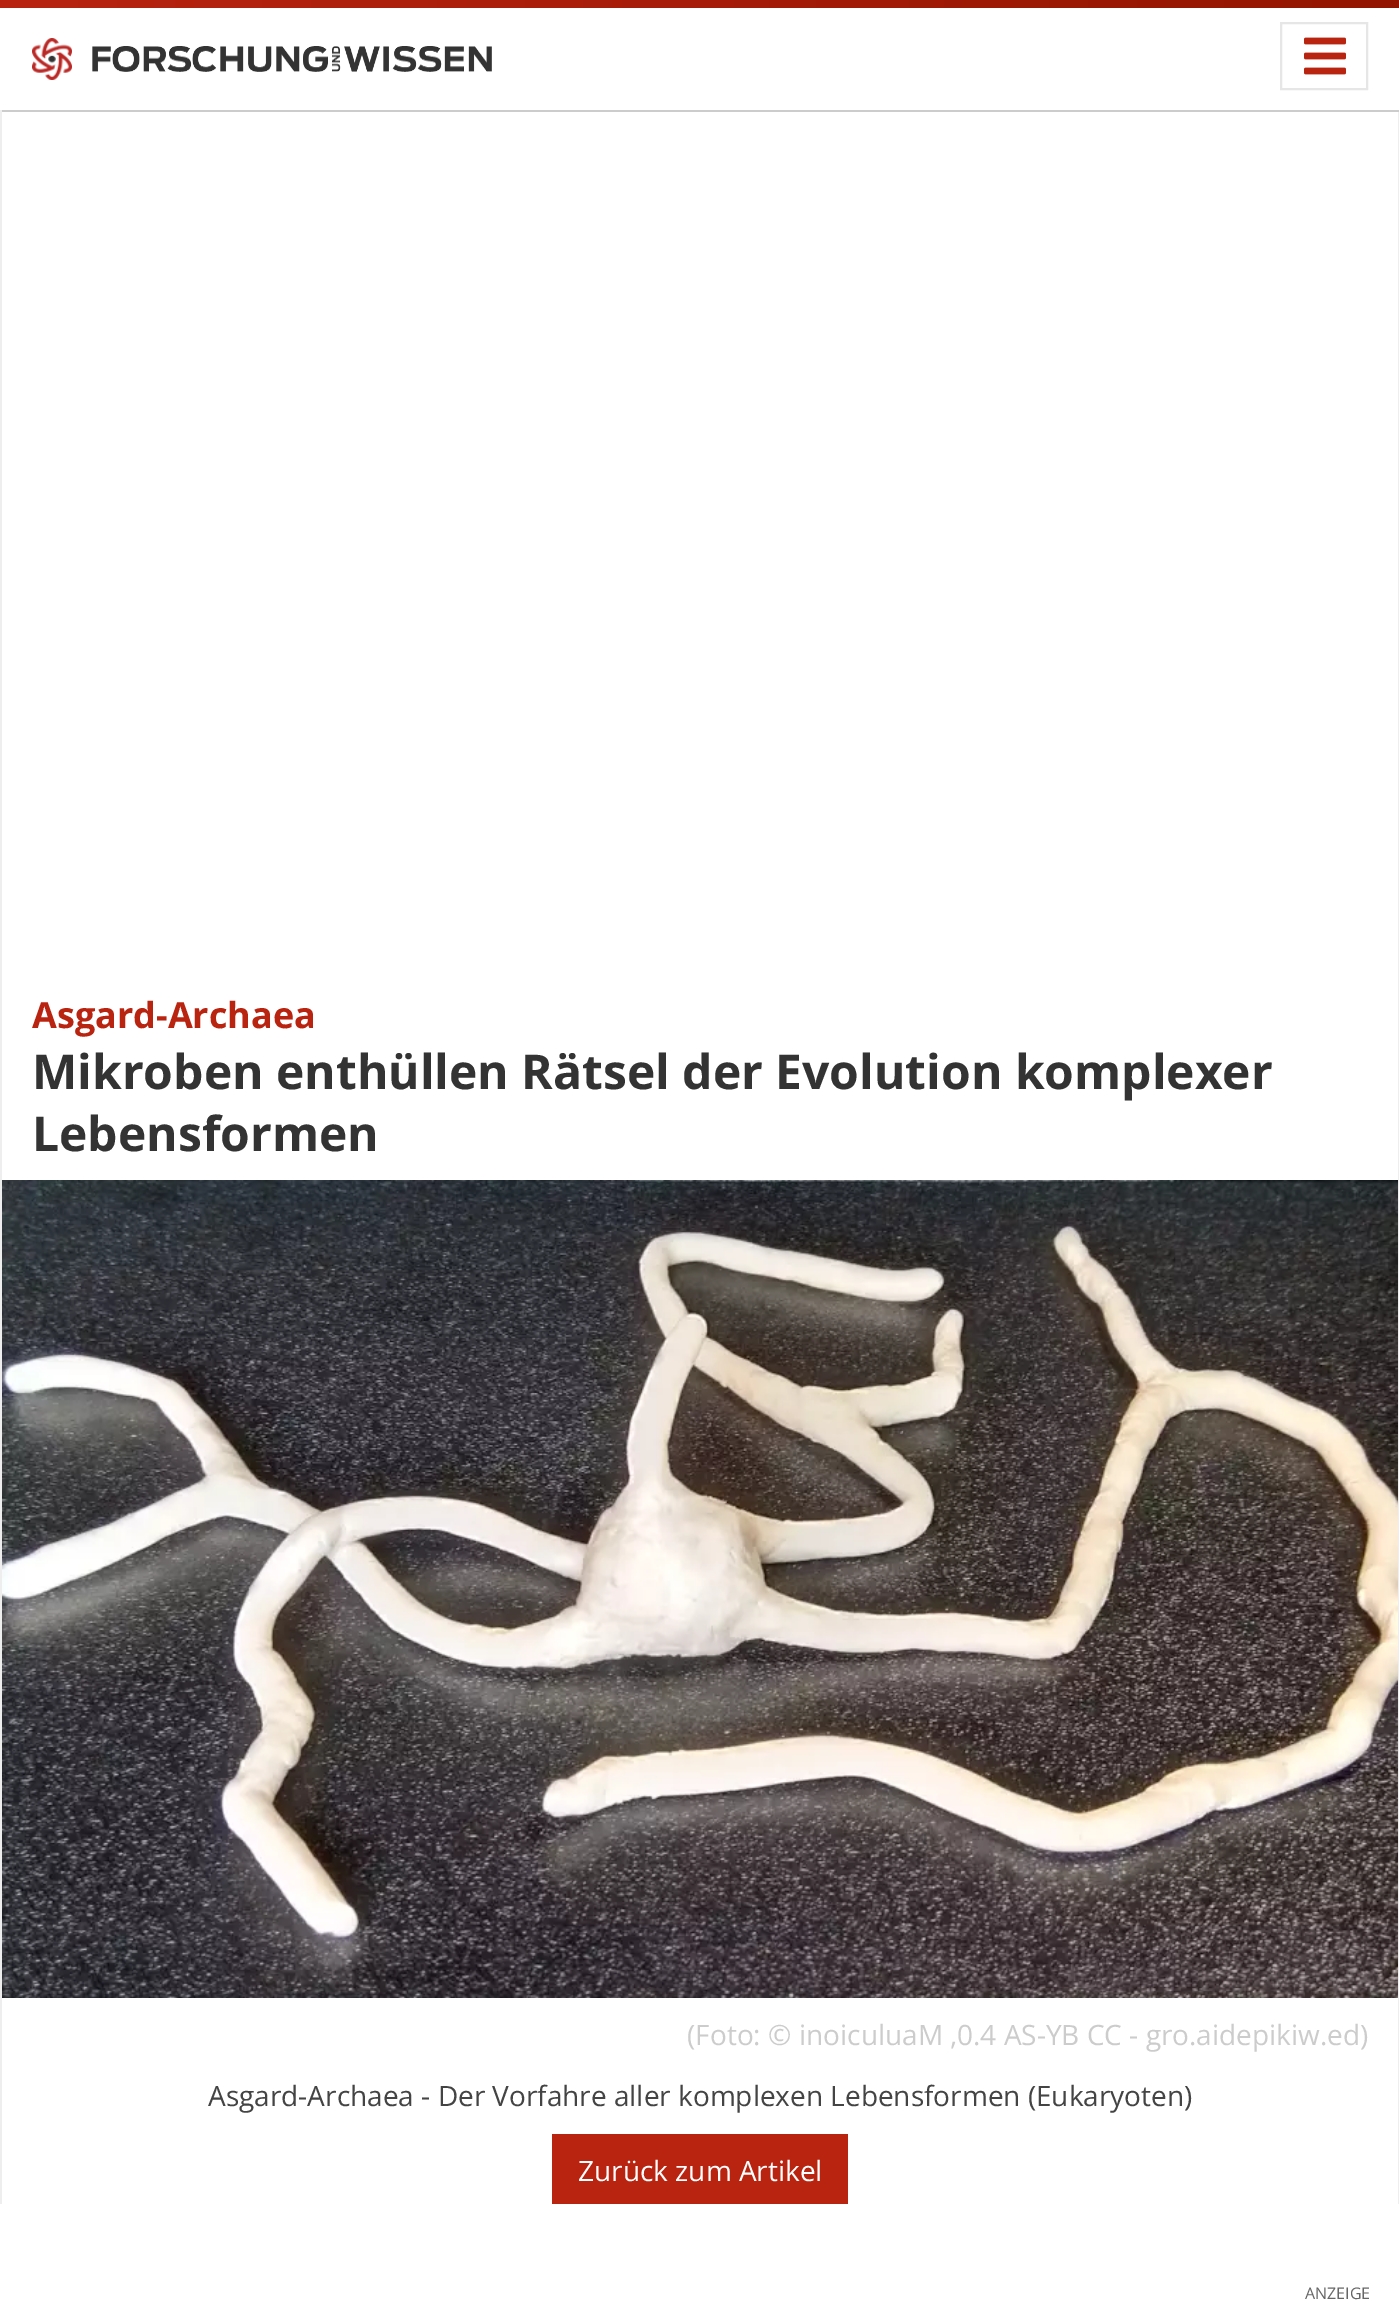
%!PS
<< /PageSize [1399 2313] >> setpagedevice
/picture { 5 dict begin { /h /w /y /x /name } { exch def } forall
  gsave x y translate w h scale
  w h 8 [w 0 0 h 0 0] name (r) file false 3 colorimage grestore end } def
0 2313 translate 1 -1 scale
4 setmiterlimit
1 setgray
0 0 1399 2313 rectfill
0.8 setgray
0 110 1399 2 rectfill
0.933 setgray
0 110 2 2 rectfill
gsave newpath 0 0 moveto 1399 0 lineto 1399 8 lineto 0 8 lineto closepath clip newpath
<< /ShadingType 2 /ColorSpace /DeviceRGB /Coords [-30 4 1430 4] /Extend [true true] /Function << /FunctionType 2 /Domain [0 1] /C0 [0.725 0.141 0.063] /C1 [0.573 0.082 0] /N 1 >> >> shfill grestore
(img1.rgb) 32 38 40 42 picture
(img2.rgb) 92 46 400 26 picture
0.902 setgray
2 setlinewidth
1281 23 86 66 rectstroke
(img3.rgb) 1304 37 42 38 picture
0.933 setgray
1398 112 1 2092 rectfill
0 112 2 2092 rectfill
/OpenSans-Bold [36 0 0 -36 0 0] selectfont
0.725 0.141 0.063 setrgbcolor
32 1028 moveto (Asgard-Archaea) show
/OpenSans-Bold [48 0 0 -48 0 0] selectfont
0.2 setgray
32 1089 moveto (Mikroben enthüllen Rätsel der Evolution komplexer) show
32 1151 moveto (Lebensformen) show
(img4.rgb) 2 1180 1396 818 picture
/OpenSans-Regular [28 0 0 -28 0 0] selectfont
0.8 setgray
687 2045 moveto (\(Foto: ©) show
799 2045 moveto (inoiculuaM) show
950 2045 moveto (,) show
957 2045 moveto (0.4 AS-YB CC - gro.aidepikiw.ed) show
1360 2045 moveto (\)) show
0.267 setgray
208 2106 moveto (Asgard-Archaea - Der Vorfahre aller komplexen Lebensformen \(Eukaryoten\)) show
0.725 0.141 0.063 setrgbcolor
552 2134 296 70 rectfill
1 setgray
578 2181 moveto (Zurück zum Artikel) show
/OpenSans-Regular [16 0 0 -16 0 0] selectfont
0.4 setgray
1305 2299 moveto (ANZEIGE) show
showpage
